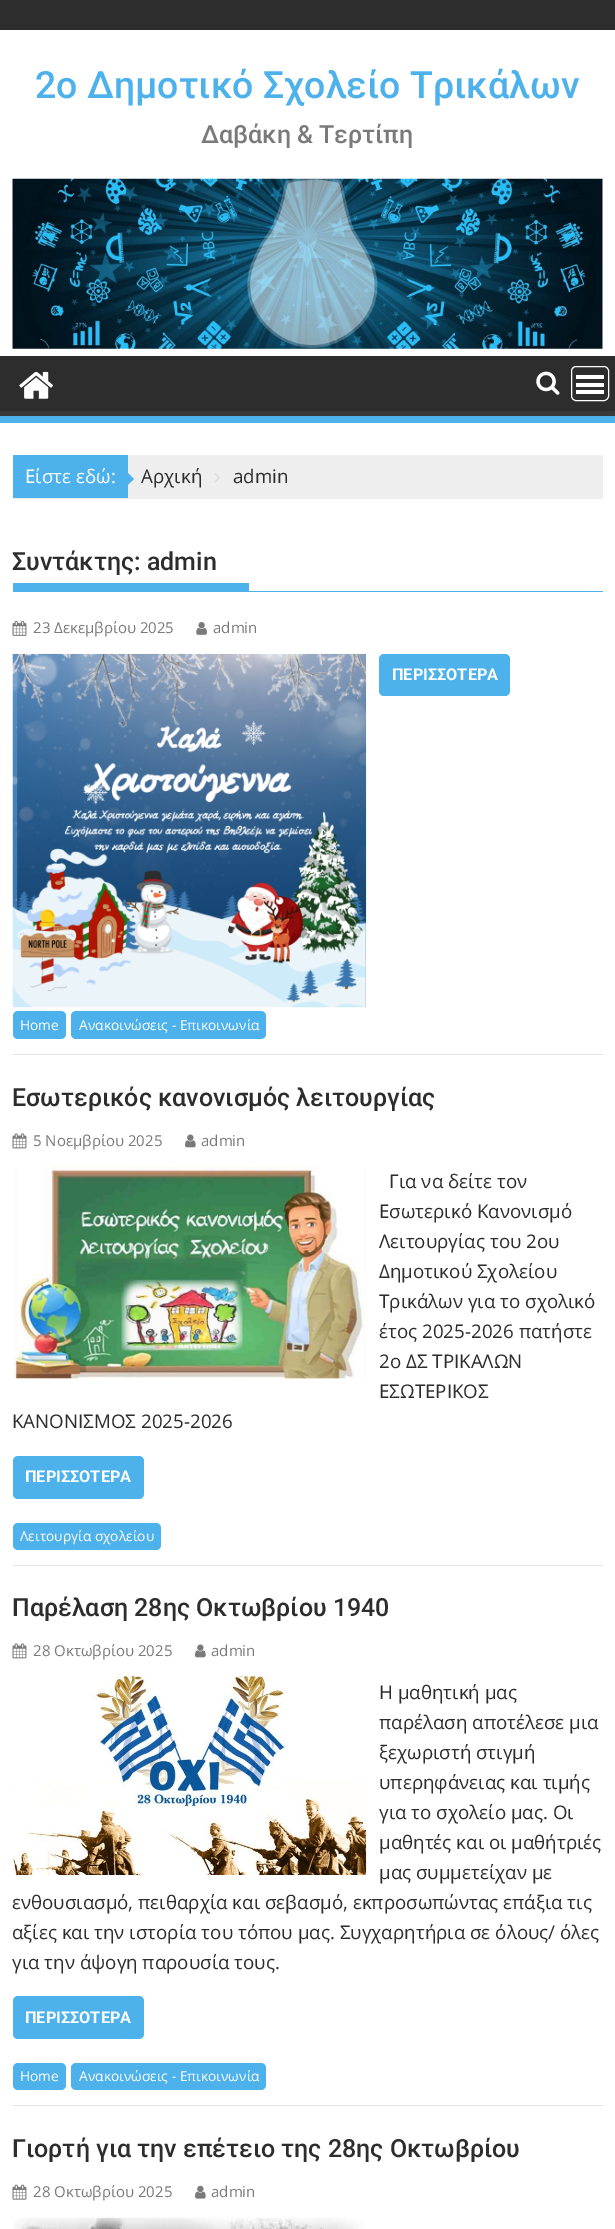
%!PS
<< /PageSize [615 2229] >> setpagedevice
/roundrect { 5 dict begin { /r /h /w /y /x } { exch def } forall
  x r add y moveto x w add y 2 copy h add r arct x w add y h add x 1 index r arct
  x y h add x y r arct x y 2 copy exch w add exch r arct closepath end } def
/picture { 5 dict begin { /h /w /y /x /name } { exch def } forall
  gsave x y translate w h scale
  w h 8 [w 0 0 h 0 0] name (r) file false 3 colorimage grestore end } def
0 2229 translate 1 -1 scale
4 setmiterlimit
1 setgray
0 0 615 2229 rectfill
0.176 setgray
0 0 615 30 rectfill
/Roboto-Medium [37.5 0 0 -37.5 0 0] selectfont
0.302 0.698 0.925 setrgbcolor
35 98 moveto (2ο Δημοτικό Σχολείο Τρικάλων) show
/Roboto-Medium [25 0 0 -25 0 0] selectfont
0.478 setgray
201 143 moveto (Δαβάκη & Τερτίπη) show
(img1.rgb) 12 178 591 171 picture
0.176 setgray
0 356 615 55 rectfill
gsave
0 356 615 60 rectclip
0.224 setgray
newpath -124 232 moveto 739 232 lineto 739 540 lineto -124 540 lineto closepath -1 349 moveto 614 349 lineto 614 349 615 349 615 350 curveto 615 410 lineto 615 411 614 411 614 411 curveto -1 411 lineto -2 411 -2 411 -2 410 curveto -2 350 lineto -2 349 -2 349 -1 349 curveto closepath eofill
grestore
0.302 0.698 0.925 setrgbcolor
0 416 615 7 rectfill
(img2.rgb) 19 371 34 28 picture
(img3.rgb) 536 371 24 24 picture
1 setgray
571.5 366.5 37 34 4.5 roundrect stroke
576 390 28 4 rectfill
576 383 28 4 rectfill
576 375 28 4 rectfill
0.933 0.933 0.937 setrgbcolor
13 455 590 44 rectfill
0.302 0.698 0.925 setrgbcolor
13 455 115 43 rectfill
/OpenSans-Regular [18.75 0 0 -18.75 0 0] selectfont
1 setgray
25 483 moveto (Είστε εδώ:) show
0.302 0.698 0.925 setrgbcolor
newpath 127.5 485 moveto 127.5 472.5 lineto 134 479 lineto closepath fill
0.176 setgray
141 483 moveto (Αρχική) show
(img4.rgb) 214 472 6 11 picture
233 483 moveto (admin) show
0.302 0.698 0.925 setrgbcolor
13 591 590 1 rectfill
/Roboto-Medium [25 0 0 -25 0 0] selectfont
0.176 setgray
12 570 moveto (Συντάκτης: admin) show
0.302 0.698 0.925 setrgbcolor
13 583 236 8 rectfill
0.898 setgray
13 1054 590 1 rectfill
(img5.rgb) 12 620 15 16 picture
/OpenSans-Regular [15 0 0 -15 0 0] selectfont
0.478 setgray
33 633 moveto (23 Δεκεμβρίου 2025) show
(img6.rgb) 196 622 11 13 picture
213 633 moveto (admin) show
(img7.rgb) 12 653 355 355 picture
0.302 0.698 0.925 setrgbcolor
379 654 131 42 5 roundrect fill
/Roboto-Bold [16.25 0 0 -16.25 0 0] selectfont
1 setgray
392 680 moveto (ΠΕΡΙΣΣΟΤΕΡΑ) show
0.302 0.698 0.925 setrgbcolor
13 1011 53 28 5 roundrect fill
/OpenSans-Regular [13.75 0 0 -13.75 0 0] selectfont
1 setgray
20 1030 moveto (Home) show
0.302 0.698 0.925 setrgbcolor
71 1011 195 28 5 roundrect fill
1 setgray
79 1030 moveto (Ανακοινώσεις - Επικοινωνία) show
0.898 setgray
13 1565 590 1 rectfill
/Roboto-Medium [25 0 0 -25 0 0] selectfont
0.176 setgray
12 1106 moveto (Εσωτερικός κανονισμός λειτουργίας) show
(img8.rgb) 12 1133 15 16 picture
/OpenSans-Regular [15 0 0 -15 0 0] selectfont
0.478 setgray
33 1146 moveto (5 Νοεμβρίου 2025) show
(img9.rgb) 185 1134 11 14 picture
201 1146 moveto (admin) show
(img10.rgb) 13 1166 353 213 picture
/OpenSans-Regular [18.75 0 0 -18.75 0 0] selectfont
0.176 setgray
389 1188 moveto (Για να δείτε τον) show
379 1218 moveto (Εσωτερικό Κανονισμό) show
379 1248 moveto (Λειτουργίας του 2ου) show
379 1278 moveto (Δημοτικού Σχολείου) show
379 1308 moveto (Τρικάλων για το σχολικό) show
379 1338 moveto (έτος 2025-2026 πατήστε) show
379 1368 moveto (2ο ΔΣ ΤΡΙΚΑΛΩΝ) show
379 1398 moveto (ΕΣΩΤΕΡΙΚΟΣ) show
12 1428 moveto (ΚΑΝΟΝΙΣΜΟΣ 2025-2026) show
0.302 0.698 0.925 setrgbcolor
13 1456 131 43 5 roundrect fill
/Roboto-Bold [16.25 0 0 -16.25 0 0] selectfont
1 setgray
25 1482 moveto (ΠΕΡΙΣΣΟΤΕΡΑ) show
0.302 0.698 0.925 setrgbcolor
13 1523 148 27 5 roundrect fill
/OpenSans-Regular [13.75 0 0 -13.75 0 0] selectfont
1 setgray
20 1541 moveto (Λειτουργία σχολείου) show
0.898 setgray
13 2105 590 1 rectfill
/Roboto-Medium [25 0 0 -25 0 0] selectfont
0.176 setgray
12 1616 moveto (Παρέλαση 28ης Οκτωβρίου 1940) show
(img8.rgb) 12 1643 15 16 picture
/OpenSans-Regular [15 0 0 -15 0 0] selectfont
0.478 setgray
33 1656 moveto (28 Οκτωβρίου 2025) show
(img9.rgb) 195 1644 11 14 picture
211 1656 moveto (admin) show
(img11.rgb) 12 1676 355 199 picture
/OpenSans-Regular [18.75 0 0 -18.75 0 0] selectfont
0.176 setgray
379 1699 moveto (Η μαθητική μας) show
379 1729 moveto (παρέλαση αποτέλεσε μια) show
379 1759 moveto (ξεχωριστή στιγμή) show
379 1789 moveto (υπερηφάνειας και τιμής) show
379 1819 moveto (για το σχολείο μας. Οι) show
379 1849 moveto (μαθητές και οι μαθήτριές) show
379 1879 moveto (μας συμμετείχαν με) show
12 1909 moveto (ενθουσιασμό, πειθαρχία και σεβασμό, εκπροσωπώντας επάξια τις) show
12 1939 moveto (αξίες και την ιστορία του τόπου μας. Συγχαρητήρια σε όλους/ όλες) show
12 1969 moveto (για την άψογη παρουσία τους.) show
0.302 0.698 0.925 setrgbcolor
13 1996 131 43 5 roundrect fill
/Roboto-Bold [16.25 0 0 -16.25 0 0] selectfont
1 setgray
25 2023 moveto (ΠΕΡΙΣΣΟΤΕΡΑ) show
0.302 0.698 0.925 setrgbcolor
13 2063 53 27 5 roundrect fill
/OpenSans-Regular [13.75 0 0 -13.75 0 0] selectfont
1 setgray
20 2081 moveto (Home) show
0.302 0.698 0.925 setrgbcolor
71 2063 195 27 5 roundrect fill
1 setgray
79 2081 moveto (Ανακοινώσεις - Επικοινωνία) show
/Roboto-Medium [25 0 0 -25 0 0] selectfont
0.176 setgray
12 2157 moveto (Γιορτή για την επέτειο της 28ης Οκτωβρίου) show
(img12.rgb) 12 2184 15 16 picture
/OpenSans-Regular [15 0 0 -15 0 0] selectfont
0.478 setgray
33 2197 moveto (28 Οκτωβρίου 2025) show
(img13.rgb) 195 2185 11 14 picture
211 2197 moveto (admin) show
(img14.rgb) 13 2217 351 12 picture
showpage
